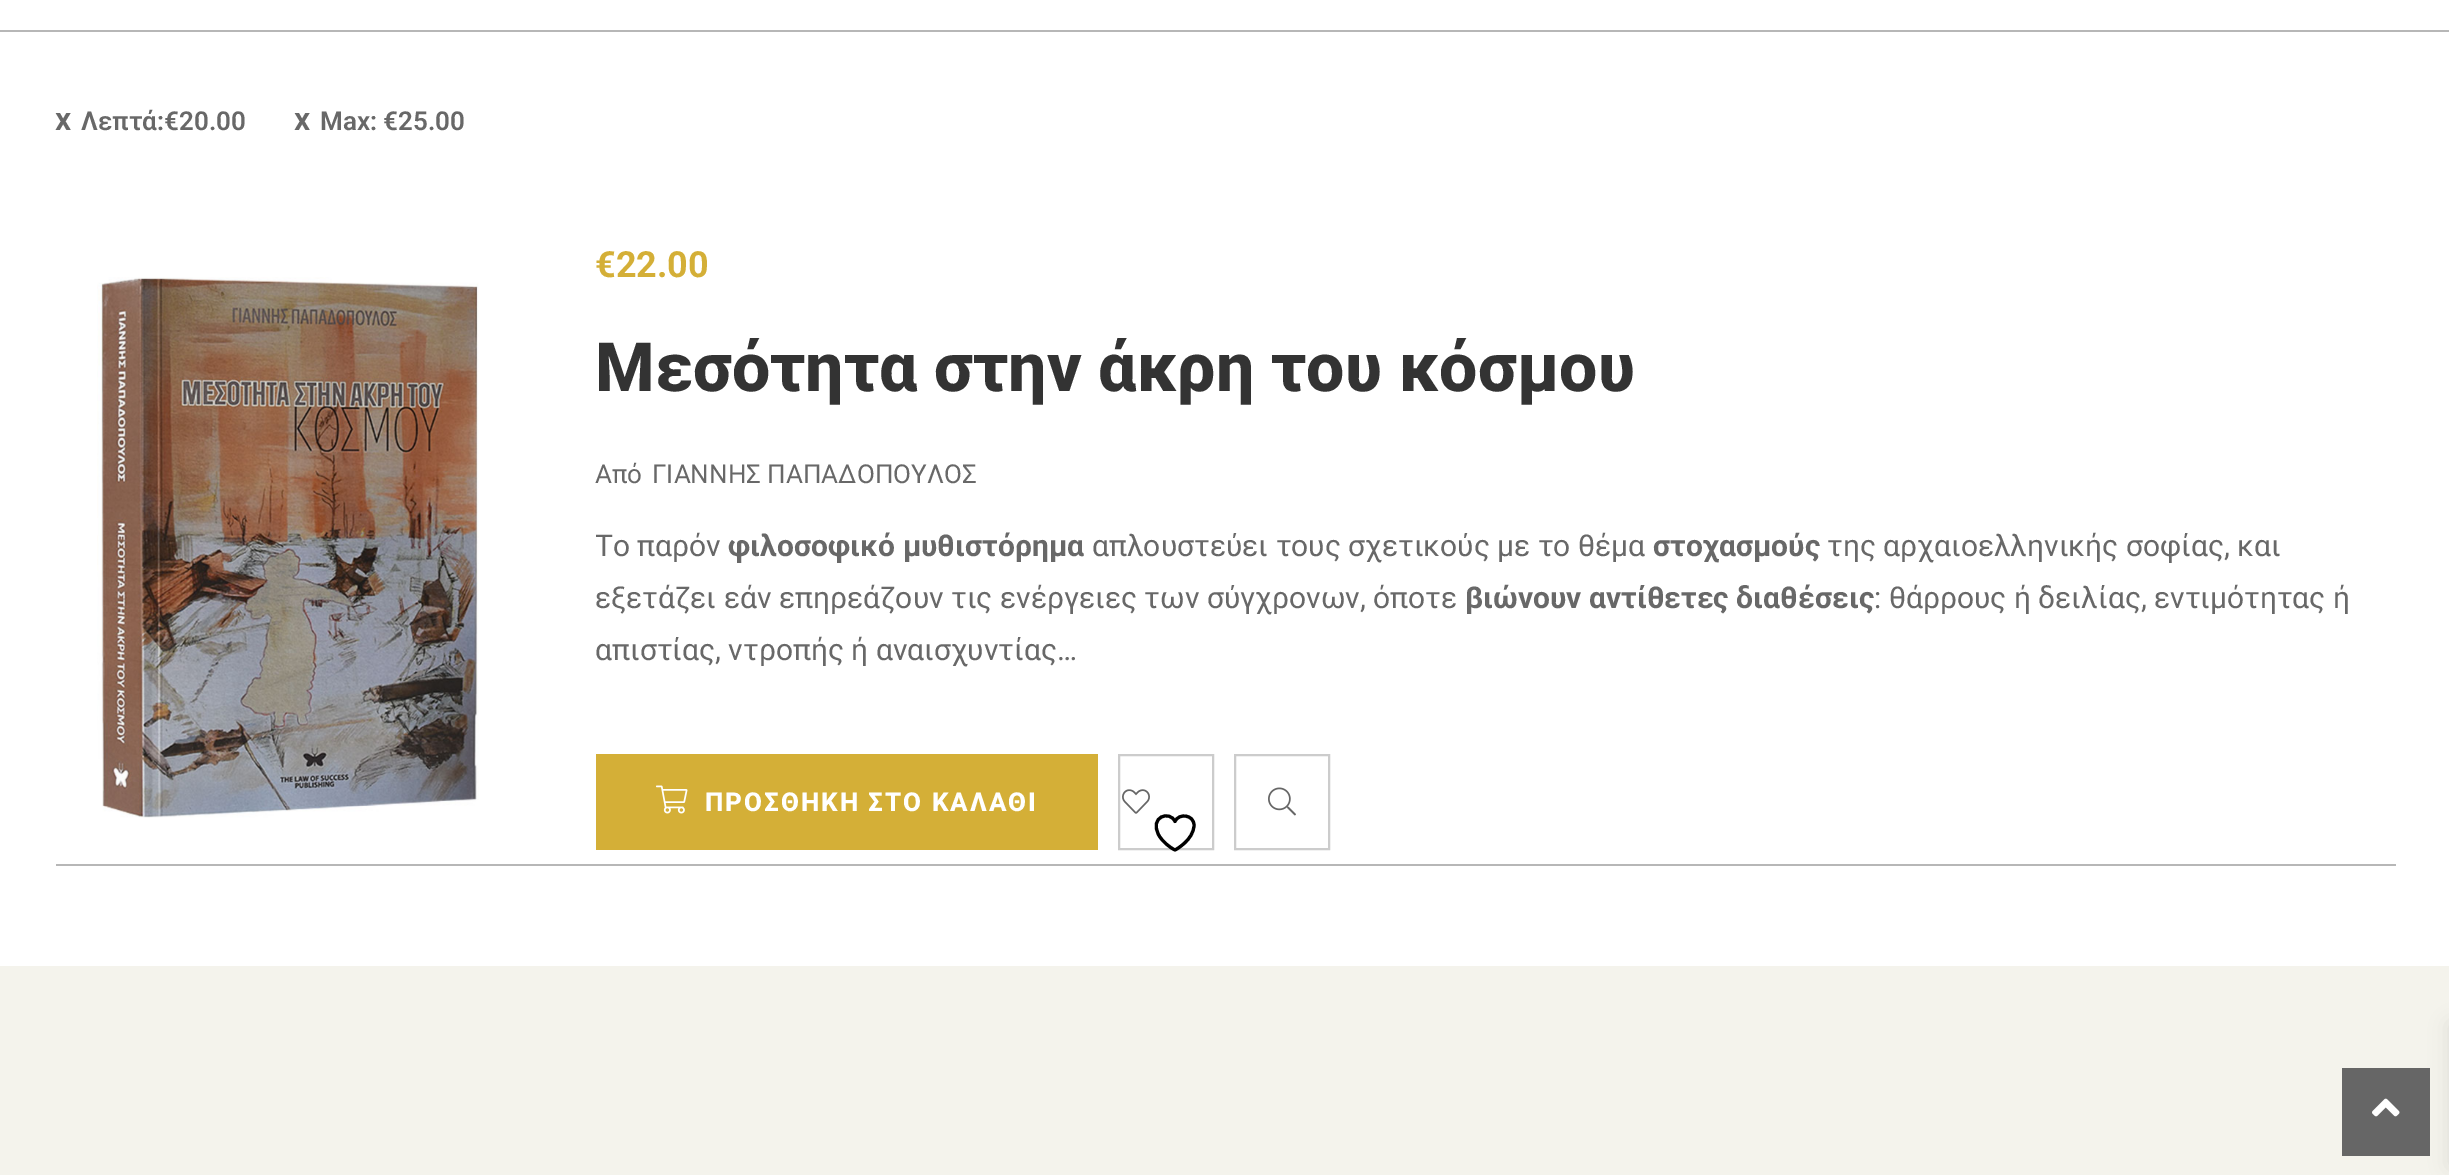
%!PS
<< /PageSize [2449 1175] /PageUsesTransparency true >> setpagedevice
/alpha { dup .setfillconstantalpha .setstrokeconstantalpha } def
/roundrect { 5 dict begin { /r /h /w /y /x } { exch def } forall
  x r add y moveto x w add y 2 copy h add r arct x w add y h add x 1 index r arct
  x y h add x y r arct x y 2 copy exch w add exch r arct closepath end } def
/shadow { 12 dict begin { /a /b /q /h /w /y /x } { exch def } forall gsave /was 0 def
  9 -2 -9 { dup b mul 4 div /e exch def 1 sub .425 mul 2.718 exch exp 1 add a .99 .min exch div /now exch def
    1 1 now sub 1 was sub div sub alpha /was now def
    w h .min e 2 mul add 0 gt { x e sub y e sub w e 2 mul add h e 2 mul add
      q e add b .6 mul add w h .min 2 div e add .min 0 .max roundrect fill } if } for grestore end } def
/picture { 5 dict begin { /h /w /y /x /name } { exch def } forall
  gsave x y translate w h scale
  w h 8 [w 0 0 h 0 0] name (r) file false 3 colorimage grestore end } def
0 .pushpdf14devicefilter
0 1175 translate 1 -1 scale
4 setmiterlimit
1 setgray
0 0 2449 1175 rectfill
0.718 setgray
0 30 2449 2 rectfill
/Roboto-SemiBold [32 0 0 -32 0 0] selectfont
0.408 setgray
55 130 moveto (x) show
/Roboto-SemiBold [26 0 0 -26 0 0] selectfont
81 130 moveto (Λεπτά:€20.00) show
/Roboto-SemiBold [32 0 0 -32 0 0] selectfont
294 130 moveto (x) show
/Roboto-SemiBold [26 0 0 -26 0 0] selectfont
320 130 moveto (Max: €25.00) show
0.718 setgray
56 864 2340 2 rectfill
(img1.rgb) 97 277 382 541 picture
/Roboto-Bold [36 0 0 -36 0 0] selectfont
0.831 0.686 0.216 setrgbcolor
595 277 moveto (€22.00) show
/Roboto-ExtraBold [68 0 0 -68 0 0] selectfont
0.2 setgray
595 391 moveto (Μεσότητα στην άκρη του κόσμου) show
/Roboto-Regular [26 0 0 -26 0 0] selectfont
0.408 setgray
595 483 moveto (Από) show
652 483 moveto (ΓΙΑΝΝΗΣ ΠΑΠΑΔΟΠΟΥΛΟΣ) show
gsave
596 522 1800 156 rectclip
/Roboto-Regular [30 0 0 -30 0 0] selectfont
595 556 moveto (Το παρόν) show
grestore
/Roboto-Bold [30 0 0 -30 0 0] selectfont
728 556 moveto (φιλοσοφικό μυθιστόρημα) show
/Roboto-Regular [30 0 0 -30 0 0] selectfont
1092 556 moveto (απλουστεύει τους σχετικούς με το θέμα) show
/Roboto-Bold [30 0 0 -30 0 0] selectfont
1653 556 moveto (στοχασμούς) show
/Roboto-Regular [30 0 0 -30 0 0] selectfont
1827 556 moveto (της αρχαιοελληνικής σοφίας, και) show
595 608 moveto (εξετάζει εάν επηρεάζουν τις ενέργειες των σύγχρονων, όποτε) show
/Roboto-Bold [30 0 0 -30 0 0] selectfont
1465 608 moveto (βιώνουν αντίθετες διαθέσεις) show
/Roboto-Regular [30 0 0 -30 0 0] selectfont
1874 608 moveto (: θάρρους ή δειλίας, εντιμότητας ή) show
595 660 moveto (απιστίας, ντροπής ή αναισχυντίας…) show
0.831 0.686 0.216 setrgbcolor
596 754 502 96 rectfill
(img2.rgb) 656 785 32 29 picture
/Roboto-ExtraBold [26 0 0 -26 0 0] selectfont
1 setgray
705 811 moveto 2 0 (ΠΡΟΣΘΗΚΗ ΣΤΟ ΚΑΛΑΘΙ) ashow
0.8 setgray
2 setlinewidth
1119 755 94 94 rectstroke
(img3.rgb) 1122 789 28 25 picture
0 setgray
3.1 setlinewidth
1 setlinecap
1 setlinejoin
newpath 1194 825 moveto 1194 815 1179 812.5 1175 821.5 curveto 1170 810 1148.5 816.5 1159 835.5 curveto 1162.5 841.5 1169 847 1175 850 curveto 1175 850 1194 840 1194 825 curveto closepath stroke
0.8 setgray
2 setlinewidth
0 setlinecap
0 setlinejoin
1235 755 94 94 rectstroke
(img4.rgb) 1268 787 28 29 picture
0.957 0.953 0.925 setrgbcolor
0 966 2449 209 rectfill
0.4 setgray
2342 1068 88 88 rectfill
(img5.rgb) 2372 1098 28 19 picture
0 setgray
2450 1024 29 142 0 10 0.1 shadow
.poppdf14devicefilter showpage
